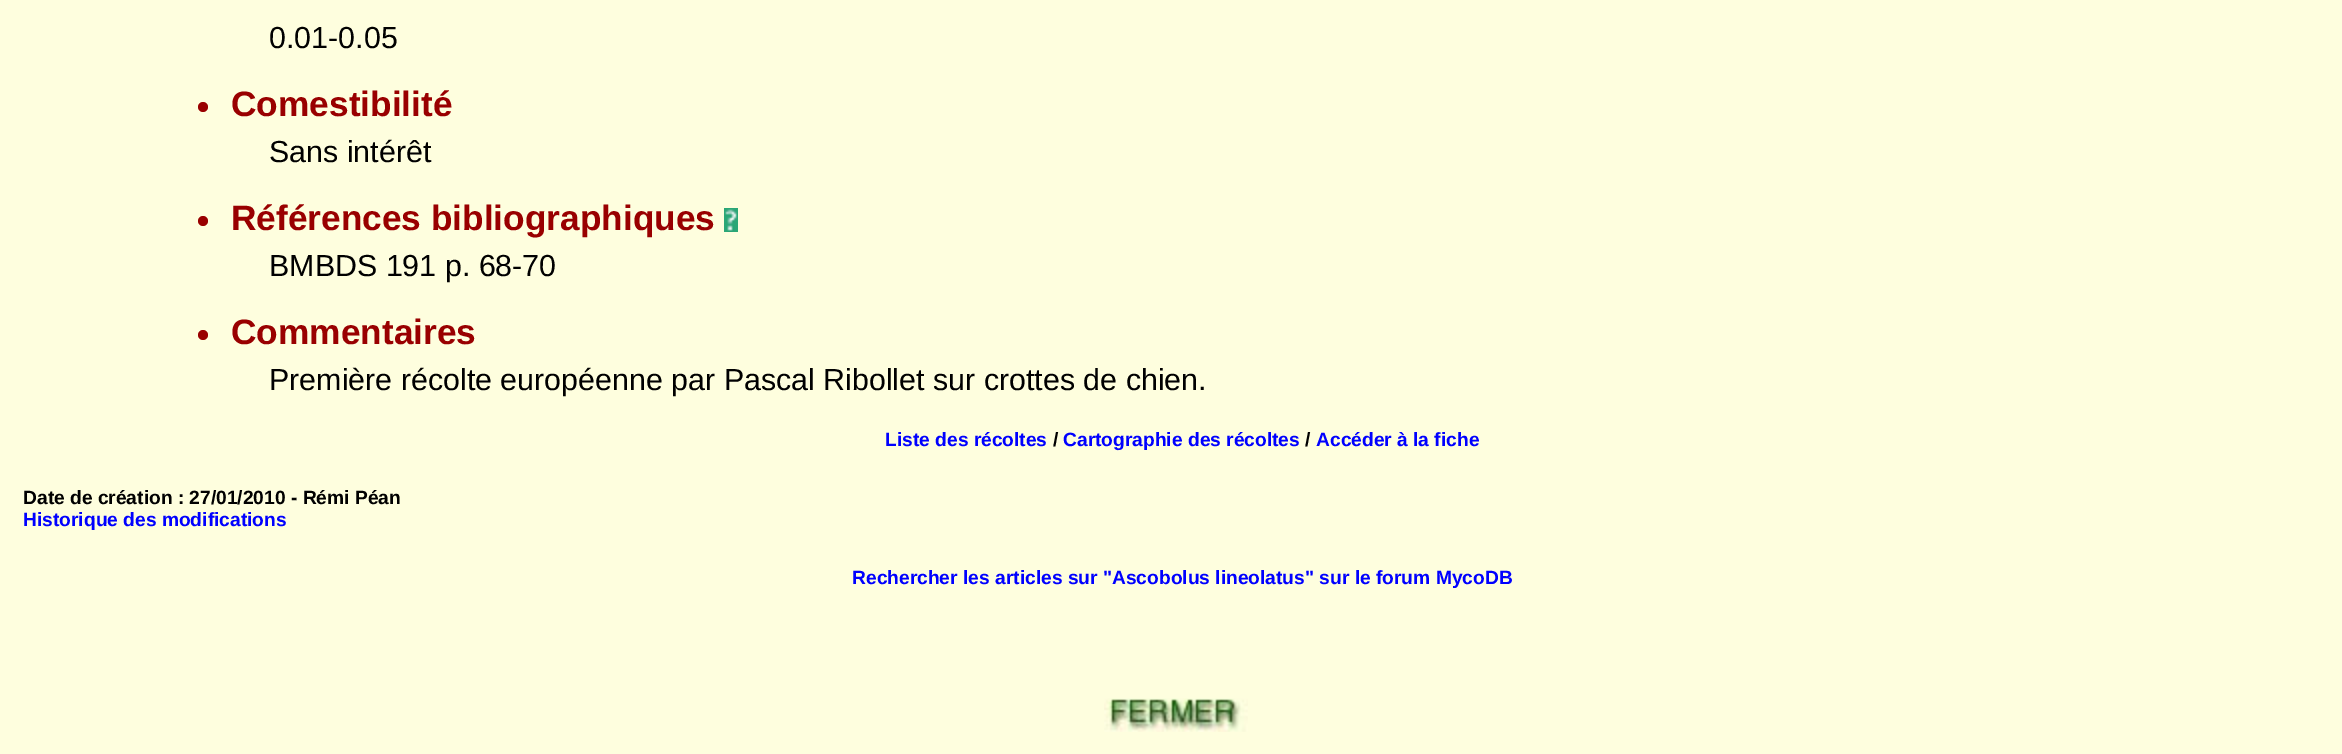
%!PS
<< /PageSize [2342 754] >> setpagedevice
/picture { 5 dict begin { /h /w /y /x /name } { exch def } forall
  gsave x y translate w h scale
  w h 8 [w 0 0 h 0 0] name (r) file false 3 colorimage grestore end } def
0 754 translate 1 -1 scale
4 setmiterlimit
0.996 0.996 0.871 setrgbcolor
0 0 2342 754 rectfill
/LiberationSans-Regular [30.4 0 0 -30.4 0 0] selectfont
0 setgray
269 48 moveto (0.01-0.05) show
0.6 0 0 setrgbcolor
newpath 203 107 5 0 360 arc closepath fill
/LiberationSans-Bold [35.25 0 0 -35.25 0 0] selectfont
231 116 moveto (Comestibilité) show
/LiberationSans-Regular [30.4 0 0 -30.4 0 0] selectfont
0 setgray
269 162 moveto (Sans intérêt) show
0.6 0 0 setrgbcolor
newpath 203 221 5 0 360 arc closepath fill
/LiberationSans-Bold [35.25 0 0 -35.25 0 0] selectfont
231 230 moveto (Références bibliographiques) show
(img1.rgb) 724 208 14 24 picture
/LiberationSans-Regular [30.4 0 0 -30.4 0 0] selectfont
0 setgray
269 276 moveto (BMBDS 191 p. 68-70) show
0.6 0 0 setrgbcolor
newpath 203 335 5 0 360 arc closepath fill
/LiberationSans-Bold [35.25 0 0 -35.25 0 0] selectfont
231 344 moveto (Commentaires) show
/LiberationSans-Regular [30.4 0 0 -30.4 0 0] selectfont
0 setgray
269 390 moveto (Première récolte européenne par Pascal Ribollet sur crottes de chien.) show
/LiberationSans-Bold [19.2 0 0 -19.2 0 0] selectfont
0 0 1 setrgbcolor
885 446 moveto (Liste des récoltes) show
0 setgray
1053 446 moveto (/) show
0 0 1 setrgbcolor
1063 446 moveto (Cartographie des récoltes) show
0 setgray
1305 446 moveto (/) show
0 0 1 setrgbcolor
1316 446 moveto (Accéder à la fiche) show
0 setgray
23 504 moveto (Date de création : 27/01/2010 - Rémi Péan) show
0 0 1 setrgbcolor
23 526 moveto (Historique des modifications) show
852 584 moveto (Rechercher les articles sur "Ascobolus lineolatus" sur le forum MycoDB) show
(img2.rgb) 1104 698 144 34 picture
showpage
